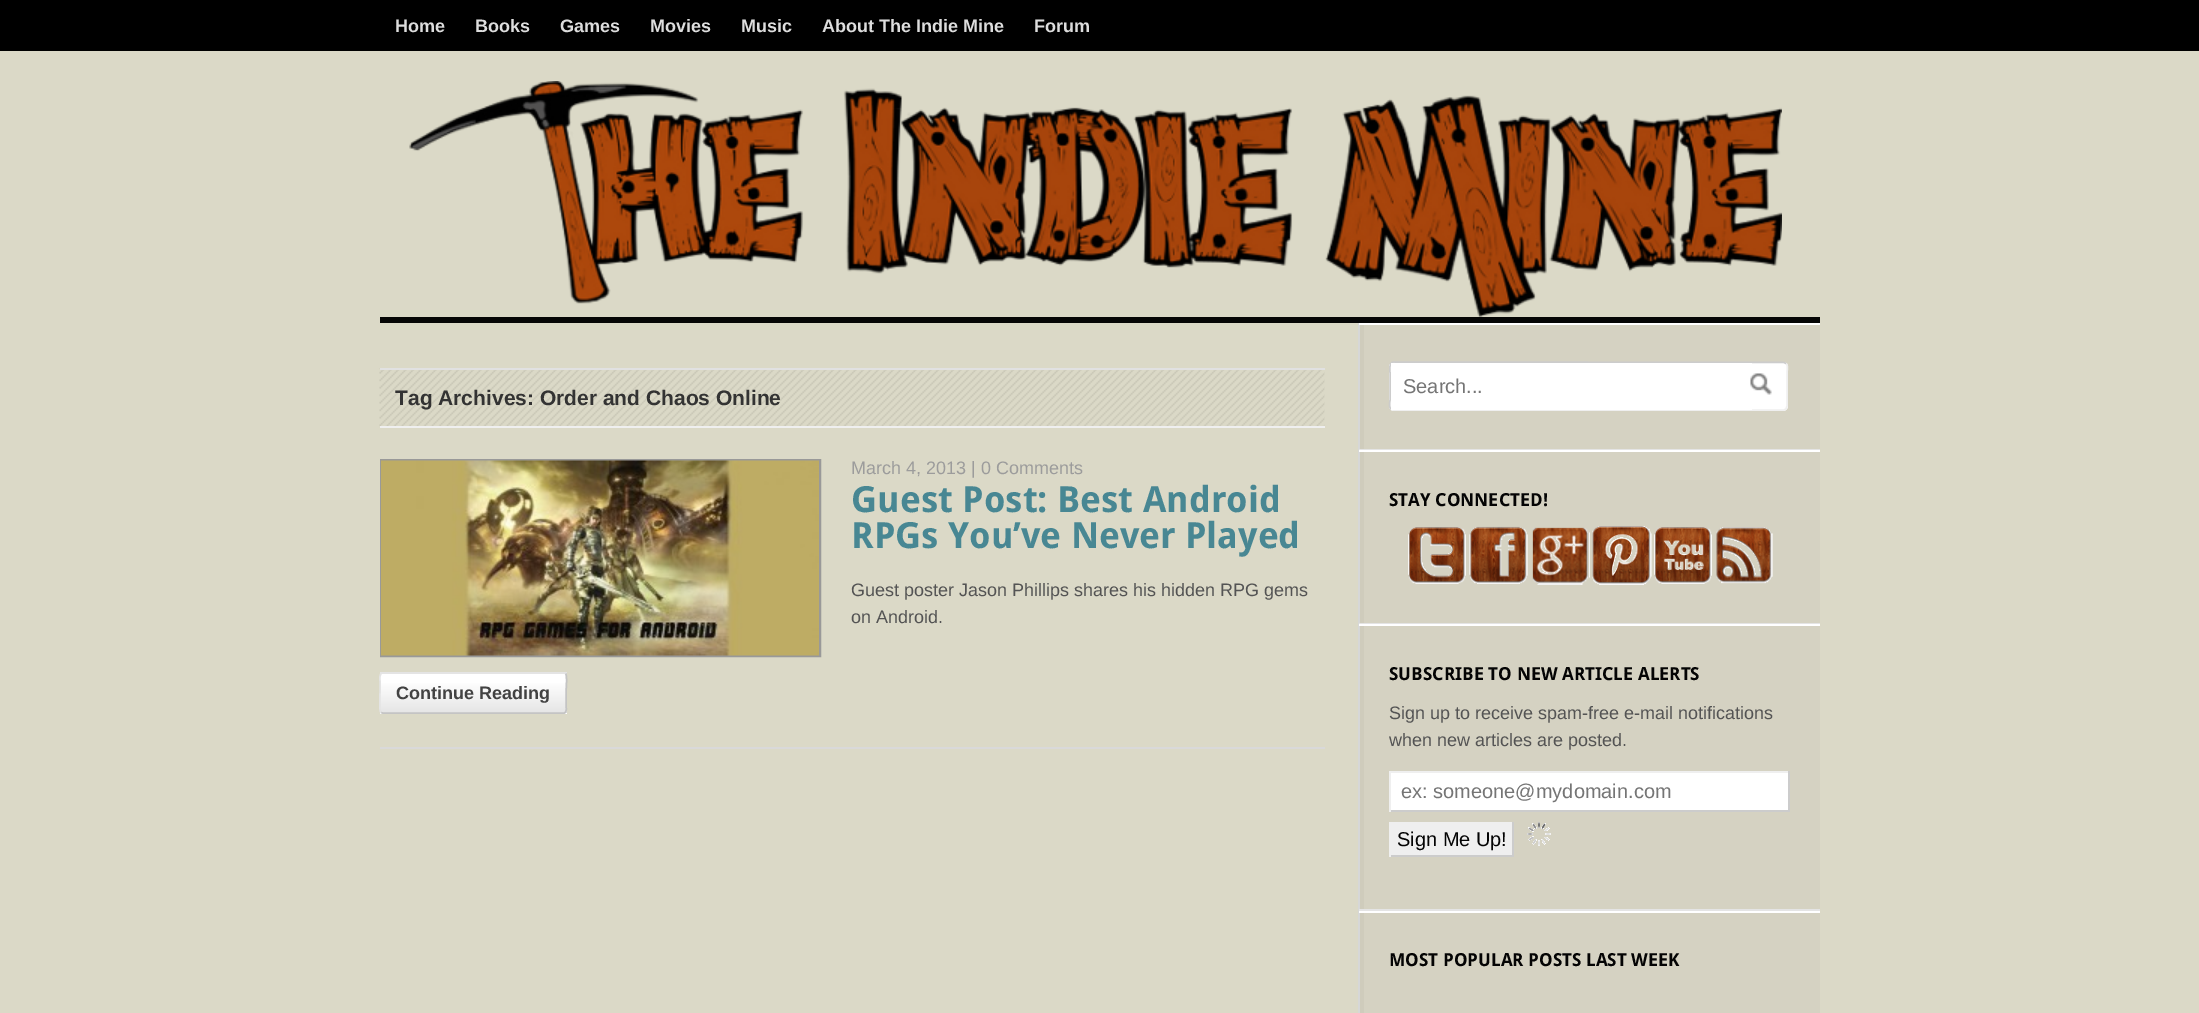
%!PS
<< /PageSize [2199 1013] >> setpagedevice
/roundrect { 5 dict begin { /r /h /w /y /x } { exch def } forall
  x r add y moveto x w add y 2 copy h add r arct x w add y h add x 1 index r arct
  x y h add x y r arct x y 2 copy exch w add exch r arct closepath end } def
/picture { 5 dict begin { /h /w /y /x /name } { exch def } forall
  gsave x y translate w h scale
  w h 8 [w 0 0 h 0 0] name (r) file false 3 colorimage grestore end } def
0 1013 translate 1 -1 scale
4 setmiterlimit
0.859 0.851 0.78 setrgbcolor
0 0 2199 1013 rectfill
0 setgray
0 0 2199 51 rectfill
/LiberationSans-Bold [18 0 0 -18 0 0] selectfont
0.867 setgray
395 32 moveto (Home) show
475 32 moveto (Books) show
560 32 moveto (Games) show
650 32 moveto (Movies) show
741 32 moveto (Music) show
822 32 moveto (About The Indie Mine) show
1034 32 moveto (Forum) show
0.024 setgray
380 317 1440 6 rectfill
(img1.rgb) 409 81 1373 236 picture
(img2.rgb) 379 368 946 58 picture
0.882 setgray
380 368 945 2 rectfill
0.937 setgray
380 426 945 2 rectfill
/LiberationSans-Bold [21 0 0 -21 0 0] selectfont
0.2 setgray
395 405 moveto (Tag Archives: Order and Chaos Online) show
0.851 setgray
380 747 945 2 rectfill
0.6 setgray
2 setlinewidth
381 460 439 196 rectstroke
(img3.rgb) 381 460 438 196 picture
/LiberationSans-Regular [18 0 0 -18 0 0] selectfont
0.612 setgray
851 474 moveto (March 4, 2013 | 0 Comments) show
/DroidSans-Bold [36 0 0 -36 0 0] selectfont
0.282 0.529 0.576 setrgbcolor
851 512 moveto (Guest Post: Best Android) show
851 548 moveto (RPGs You’ve Never Played) show
/LiberationSans-Regular [18 0 0 -18 0 0] selectfont
0.329 setgray
851 596 moveto (Guest poster Jason Phillips shares his hidden RPG gems) show
851 623 moveto (on Android.) show
gsave
380 672 187 42 3 roundrect clip newpath
gsave newpath 380 672 moveto 567 672 lineto 567 674 lineto 380 674 lineto closepath clip newpath
<< /ShadingType 2 /ColorSpace /DeviceRGB /Coords [381 635 381 674] /Extend [true true] /Function << /FunctionType 3 /Domain [0 1] /Functions [<< /FunctionType 2 /Domain [0 1] /C0 [1 1 1] /C1 [1 1 1] /N 1 >> << /FunctionType 2 /Domain [0 1] /C0 [1 1 1] /C1 [0.898 0.898 0.898] /N 1 >>] /Bounds [0.2] /Encode [0 1 0 1] >> >> shfill grestore
gsave newpath 380 674 moveto 567 674 lineto 567 713 lineto 380 713 lineto closepath clip newpath
<< /ShadingType 2 /ColorSpace /DeviceRGB /Coords [381 674 381 713] /Extend [true true] /Function << /FunctionType 3 /Domain [0 1] /Functions [<< /FunctionType 2 /Domain [0 1] /C0 [1 1 1] /C1 [1 1 1] /N 1 >> << /FunctionType 2 /Domain [0 1] /C0 [1 1 1] /C1 [0.898 0.898 0.898] /N 1 >>] /Bounds [0.2] /Encode [0 1 0 1] >> >> shfill grestore
gsave newpath 380 713 moveto 567 713 lineto 567 714 lineto 380 714 lineto closepath clip newpath
<< /ShadingType 2 /ColorSpace /DeviceRGB /Coords [381 713 381 752] /Extend [true true] /Function << /FunctionType 3 /Domain [0 1] /Functions [<< /FunctionType 2 /Domain [0 1] /C0 [1 1 1] /C1 [1 1 1] /N 1 >> << /FunctionType 2 /Domain [0 1] /C0 [1 1 1] /C1 [0.898 0.898 0.898] /N 1 >>] /Bounds [0.2] /Encode [0 1 0 1] >> >> shfill grestore
grestore
0.769 setgray
1.5 setlinewidth
newpath 565.5 673.5 moveto 567.5 675 566 690 566 693 curveto 566 705 lineto 566 706 567.5 713 564 713 curveto 382.5 713 lineto 381 712.5 lineto stroke
0.894 setgray
newpath 381 712.5 moveto 379 711 380 696 380 693 curveto 380 681 lineto 380 680 379 673 382.5 673 curveto 564 673 lineto 565.5 673.5 lineto stroke
/LiberationSans-Bold [18 0 0 -18 0 0] selectfont
0.259 setgray
396 699 moveto (Continue Reading) show
0.835 0.824 0.761 setrgbcolor
1364 325 456 688 rectfill
0.812 0.8 0.737 setrgbcolor
1360 323 4 690 rectfill
0.839 0.843 0.843 setrgbcolor
1358 323 2 690 rectfill
1 setgray
1359 323 461 2 rectfill
0.894 setgray
1359 449 461 1 rectfill
1 setgray
1389 362 399 49 5 roundrect fill
0.937 setgray
newpath 1786 363.5 moveto 1788.5 365.5 1787 371 1787 373 curveto 1787 400 lineto 1787 402.5 1788.5 410 1783.5 410 curveto 1393 410 lineto 1391 409 lineto stroke
0.8 setgray
newpath 1391 409 moveto 1388.5 407 1390 401.5 1390 400 curveto 1390 373 lineto 1390 370 1388.5 362.5 1393.5 362 curveto 1784 362.5 lineto 1786 363.5 lineto stroke
1 setgray
1391 363 361 47 rectfill
/LiberationSans-Regular [20 0 0 -20 0 0] selectfont
0.459 setgray
1403 393 moveto (Search...) show
(img4.rgb) 1750 373 22 22 picture
1 setgray
1359 450 461 2 rectfill
0.894 setgray
1359 623 461 1 rectfill
/DroidSans-Bold [18 0 0 -18 0 0] selectfont
0.016 setgray
1389 506 moveto (STAY CONNECTED!) show
(img5.rgb) 1408 527 58 57 picture
(img6.rgb) 1469 526 59 58 picture
(img7.rgb) 1532 527 58 58 picture
(img8.rgb) 1592 526 60 59 picture
(img9.rgb) 1654 527 58 57 picture
(img10.rgb) 1716 527 57 57 picture
1 setgray
1359 624 461 2 rectfill
0.894 setgray
1359 909 461 2 rectfill
0.016 setgray
1389 680 moveto (SUBSCRIBE TO NEW ARTICLE ALERTS) show
/LiberationSans-Regular [18 0 0 -18 0 0] selectfont
0.329 setgray
1389 719 moveto (Sign up to receive spam-free e-mail notifications) show
1389 746 moveto (when new articles are posted.) show
1 setgray
1391 773 397 37 rectfill
0.937 setgray
1389 771 401 2 rectfill
0.8 setgray
1788 771 2 41 rectfill
1389 810 401 2 rectfill
0.937 setgray
1389 771 2 41 rectfill
/LiberationSans-Regular [20 0 0 -20 0 0] selectfont
0.459 setgray
1401 798 moveto (ex: someone@mydomain.com) show
0.937 setgray
1391 822 121 33 rectfill
0.8 setgray
1512 822 2 35 rectfill
1389 855 125 2 rectfill
0.937 setgray
1389 822 2 35 rectfill
0.016 setgray
1397 846 moveto (Sign Me Up!) show
(img11.rgb) 1527 822 24 24 picture
1 setgray
1359 911 461 2 rectfill
/DroidSans-Bold [18 0 0 -18 0 0] selectfont
0.016 setgray
1389 966 moveto (MOST POPULAR POSTS LAST WEEK) show
showpage
